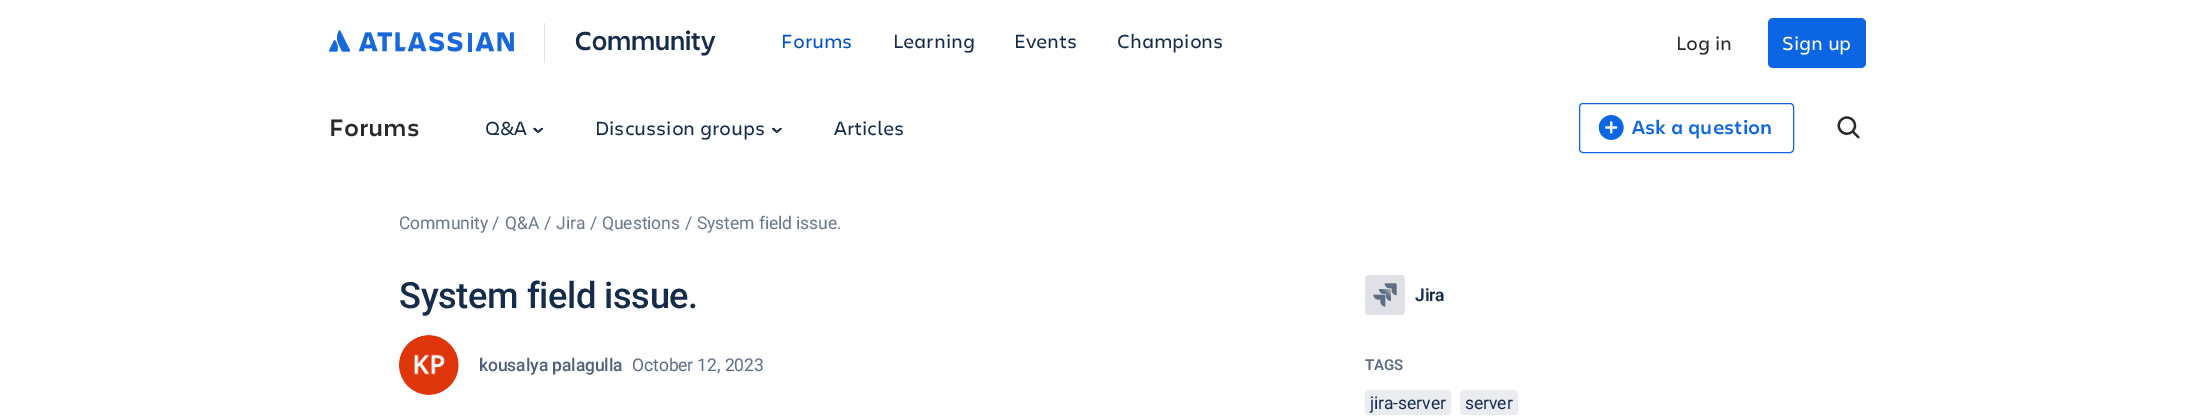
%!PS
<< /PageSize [2197 419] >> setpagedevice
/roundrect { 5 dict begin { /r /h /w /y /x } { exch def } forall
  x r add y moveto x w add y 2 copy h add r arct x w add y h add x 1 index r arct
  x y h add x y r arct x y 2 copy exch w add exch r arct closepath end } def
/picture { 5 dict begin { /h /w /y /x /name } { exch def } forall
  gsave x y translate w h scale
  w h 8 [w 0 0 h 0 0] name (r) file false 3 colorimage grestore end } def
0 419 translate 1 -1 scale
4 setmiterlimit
1 setgray
0 0 2197 419 rectfill
(img1.rgb) 329 30 185 22 picture
0.875 0.882 0.902 setrgbcolor
544 23 1 40 rectfill
/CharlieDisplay-SemiBold [27.5 0 0 -27.5 0 0] selectfont
0.09 0.169 0.302 setrgbcolor
575 50 moveto -0.1 0 (Community) ashow
/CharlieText-Regular [20 0 0 -20 0 0] selectfont
0 0.322 0.8 setrgbcolor
781 48 moveto -0.1 0 (Forums) ashow
0.09 0.169 0.302 setrgbcolor
893 48 moveto -0.1 0 (Learning) ashow
1014 48 moveto -0.1 0 (Events) ashow
1117 48 moveto -0.1 0 (Champions) ashow
0.161 0.165 0.18 setrgbcolor
1676 50 moveto -0.1 0 (Log in) ashow
0.047 0.4 0.894 setrgbcolor
1768 18 98 50 5 roundrect fill
1 setgray
1782 50 moveto -0.1 0 (Sign up) ashow
/CharlieText-SemiBold [25 0 0 -25 0 0] selectfont
0.161 0.165 0.18 setrgbcolor
329 136 moveto (Forums) show
/CharlieText-Regular [20 0 0 -20 0 0] selectfont
0.09 0.169 0.302 setrgbcolor
485 135 moveto -0.1 0 (Q&A) ashow
(img2.rgb) 533 127 11 6 picture
595 135 moveto -0.1 0 (Discussion groups) ashow
(img3.rgb) 772 127 10 6 picture
834 135 moveto -0.1 0 (Articles) ashow
0.047 0.4 0.894 setrgbcolor
1579.5 103.5 214 49 3.5 roundrect stroke
(img4.rgb) 1598 115 26 25 picture
/CharlieText-SemiBold [20 0 0 -20 0 0] selectfont
1632 134 moveto (Ask a question) show
(img5.rgb) 1837 116 23 23 picture
/Roboto-Regular [17.5 0 0 -17.5 0 0] selectfont
0.42 0.467 0.549 setrgbcolor
399 229 moveto -0.1 0 (Community) ashow
492 229 moveto -0.1 0 (/) ashow
505 229 moveto -0.1 0 (Q&A) ashow
544 229 moveto -0.1 0 (/) ashow
556 229 moveto -0.1 0 (Jira) ashow
590 229 moveto -0.1 0 (/) ashow
602 229 moveto -0.1 0 (Questions) ashow
685 229 moveto -0.1 0 (/) ashow
697 229 moveto -0.1 0 (System field issue.) ashow
/Roboto-Medium [36.25 0 0 -36.25 0 0] selectfont
0.09 0.169 0.302 setrgbcolor
399 308 moveto -0.4 0 (System field issue.) ashow
(img6.rgb) 398 335 61 60 picture
/Roboto-Medium [17.5 0 0 -17.5 0 0] selectfont
0.314 0.373 0.475 setrgbcolor
479 371 moveto -0.1 0 (kousalya palagulla) ashow
/Roboto-Regular [17.5 0 0 -17.5 0 0] selectfont
0.369 0.424 0.518 setrgbcolor
632 371 moveto -0.1 0 (October 12, 2023) ashow
0.875 0.882 0.902 setrgbcolor
1365 275 40 40 4 roundrect fill
(img7.rgb) 1373 283 24 24 picture
/Roboto-SemiBold [17.5 0 0 -17.5 0 0] selectfont
0.09 0.169 0.302 setrgbcolor
1415 301 moveto -0.1 0 (Jira) ashow
/Roboto-SemiBold [15 0 0 -15 0 0] selectfont
0.369 0.424 0.518 setrgbcolor
1365 370 moveto -0.1 0 (TAGS) ashow
0.922 0.925 0.941 setrgbcolor
1365 390 86 25 4 roundrect fill
/Roboto-Regular [17.5 0 0 -17.5 0 0] selectfont
0.09 0.169 0.302 setrgbcolor
1370 409 moveto -0.1 0 (jira-server) ashow
0.922 0.925 0.941 setrgbcolor
1460 390 58 25 4 roundrect fill
0.09 0.169 0.302 setrgbcolor
1465 409 moveto -0.1 0 (server) ashow
showpage
